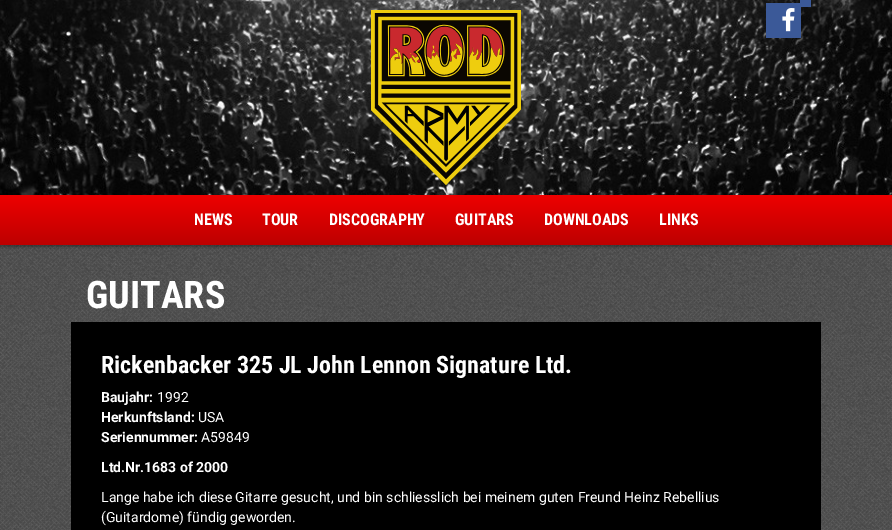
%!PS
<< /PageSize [892 530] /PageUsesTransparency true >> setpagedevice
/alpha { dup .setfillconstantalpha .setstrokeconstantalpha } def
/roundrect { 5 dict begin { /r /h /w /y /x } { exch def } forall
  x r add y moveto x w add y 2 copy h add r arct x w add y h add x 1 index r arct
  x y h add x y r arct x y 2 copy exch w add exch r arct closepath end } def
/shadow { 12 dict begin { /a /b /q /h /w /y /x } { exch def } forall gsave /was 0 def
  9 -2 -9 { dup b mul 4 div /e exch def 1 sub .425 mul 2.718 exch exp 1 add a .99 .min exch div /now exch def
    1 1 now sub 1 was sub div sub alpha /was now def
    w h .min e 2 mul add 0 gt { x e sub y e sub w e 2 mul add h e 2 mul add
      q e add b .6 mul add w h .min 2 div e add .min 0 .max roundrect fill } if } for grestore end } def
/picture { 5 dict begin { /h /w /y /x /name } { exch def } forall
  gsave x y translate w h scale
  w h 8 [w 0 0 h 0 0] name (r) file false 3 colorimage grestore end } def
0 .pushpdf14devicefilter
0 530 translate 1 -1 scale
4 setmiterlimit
1 setgray
0 0 892 530 rectfill
(img1.rgb) 0 245 892 285 picture
(img2.rgb) 0 0 892 195 picture
(img3.rgb) 371 10 150 175 picture
0.231 0.349 0.596 setrgbcolor
766 3 35 35 rectfill
800 0 11 7 rectfill
(img4.rgb) 782 8 13 24 picture
0 setgray
0 197 892 50 0 1 0.3 shadow
gsave newpath 0 195 moveto 892 195 lineto 892 245 lineto 0 245 lineto closepath clip newpath
<< /ShadingType 2 /ColorSpace /DeviceRGB /Coords [446 195 446 245] /Extend [true true] /Function << /FunctionType 2 /Domain [0 1] /C0 [0.933 0 0] /C1 [0.741 0 0] /N 1 >> >> shfill grestore
/RobotoCondensed-Bold [16 0 0 -16 0 0] selectfont
1 setgray
194 225 moveto (NEWS) show
262 225 moveto (TOUR) show
329 225 moveto (DISCOGRAPHY) show
455 225 moveto (GUITARS) show
544 225 moveto (DOWNLOADS) show
659 225 moveto (LINKS) show
/RobotoCondensed-Bold [38 0 0 -38 0 0] selectfont
86 308 moveto (GUITARS) show
0 setgray
71 322 750 208 rectfill
/RobotoCondensed-Bold [24 0 0 -24 0 0] selectfont
1 setgray
101 373 moveto (Rickenbacker 325 JL John Lennon Signature Ltd.) show
/Roboto-Bold [14 0 0 -14 0 0] selectfont
101 402 moveto (Baujahr:) show
/Roboto-Regular [14 0 0 -14 0 0] selectfont
157 402 moveto (1992) show
/Roboto-Bold [14 0 0 -14 0 0] selectfont
101 422 moveto (Herkunftsland:) show
/Roboto-Regular [14 0 0 -14 0 0] selectfont
198 422 moveto (USA) show
/Roboto-Bold [14 0 0 -14 0 0] selectfont
101 442 moveto (Seriennummer:) show
/Roboto-Regular [14 0 0 -14 0 0] selectfont
201 442 moveto (A59849) show
/Roboto-Bold [14 0 0 -14 0 0] selectfont
101 472 moveto (Ltd.Nr.1683 of 2000) show
/Roboto-Regular [14 0 0 -14 0 0] selectfont
101 502 moveto (Lange habe ich diese Gitarre gesucht, und bin schliesslich bei meinem guten Freund Heinz Rebellius) show
101 522 moveto (\(Guitardome\) fündig geworden.) show
.poppdf14devicefilter showpage
